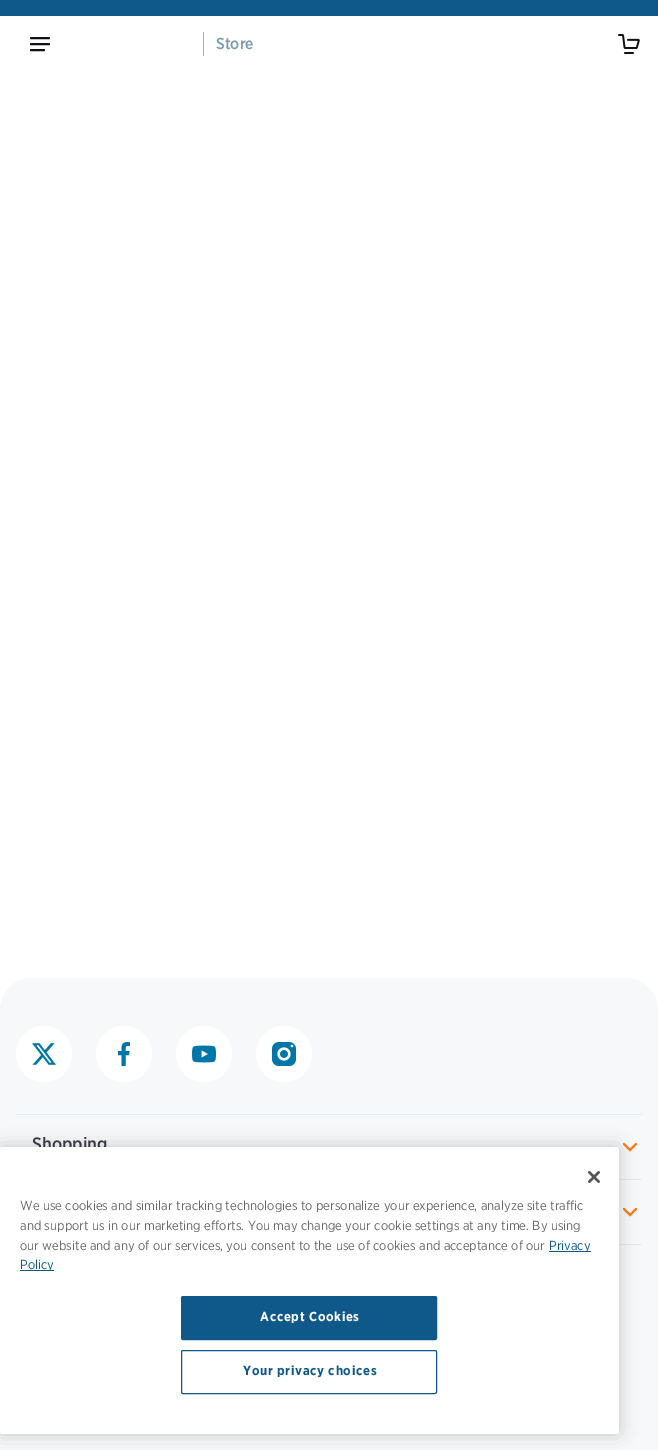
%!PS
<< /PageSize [658 1450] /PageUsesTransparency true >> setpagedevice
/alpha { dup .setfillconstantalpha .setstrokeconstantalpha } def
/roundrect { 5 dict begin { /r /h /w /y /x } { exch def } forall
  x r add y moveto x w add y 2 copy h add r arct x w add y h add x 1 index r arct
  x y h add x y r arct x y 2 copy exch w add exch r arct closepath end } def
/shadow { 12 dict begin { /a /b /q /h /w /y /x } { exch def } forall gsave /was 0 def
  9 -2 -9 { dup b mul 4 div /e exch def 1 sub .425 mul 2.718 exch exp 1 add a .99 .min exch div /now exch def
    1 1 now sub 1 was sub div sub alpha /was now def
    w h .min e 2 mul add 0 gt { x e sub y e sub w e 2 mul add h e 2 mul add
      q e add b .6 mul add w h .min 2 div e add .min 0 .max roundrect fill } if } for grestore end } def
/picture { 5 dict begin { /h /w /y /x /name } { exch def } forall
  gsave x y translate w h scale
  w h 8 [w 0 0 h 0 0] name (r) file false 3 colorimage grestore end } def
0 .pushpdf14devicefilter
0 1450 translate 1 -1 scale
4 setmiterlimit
1 setgray
0 0 658 1450 rectfill
0.059 0.345 0.541 setrgbcolor
0 0 658 16 rectfill
0.067 0.063 0.078 setrgbcolor
2 setlinewidth
1 setlinecap
newpath 49 44 moveto 31 44 lineto 49 38 moveto 31 38 lineto 44 50 moveto 31 50 lineto stroke
0.635 0.729 0.78 setrgbcolor
203 32 1 24 0.5 roundrect fill
/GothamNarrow-Medium [16 0 0 -16 0 0] selectfont
0.478 0.612 0.686 setrgbcolor
216 49 moveto (Store) show
(img1.rgb) 618 34 22 20 picture
0.965 0.973 0.976 setrgbcolor
newpath 32 978 moveto 626 978 lineto 643.5 978 658 992.5 658 1010 curveto 658 1450 lineto 0 1450 lineto 0 1010 lineto 0 992.5 14.5 978 32 978 curveto closepath fill
1 setgray
newpath 44 1054 28 0 360 arc closepath fill
(img2.rgb) 32 1043 24 22 picture
newpath 124 1054 28 0 360 arc closepath fill
(img3.rgb) 118 1042 12 24 picture
newpath 204 1054 28 0 360 arc closepath fill
(img4.rgb) 192 1045 24 18 picture
newpath 284 1054 28 0 360 arc closepath fill
(img5.rgb) 272 1042 24 24 picture
0.882 0.918 0.941 setrgbcolor
16 1114 626 1 rectfill
/GothamNarrow-Medium [18 0 0 -18 0 0] selectfont
0.255 0.239 0.275 setrgbcolor
32 1150 moveto (Shopping) show
1 0.478 0.078 setrgbcolor
newpath 624 1144 moveto 630 1150 lineto 636 1144 lineto stroke
0.882 0.918 0.941 setrgbcolor
619 1179 23 1 rectfill
619 1244 23 1 rectfill
1 0.478 0.078 setrgbcolor
newpath 624 1209 moveto 630 1215 lineto 636 1209 lineto stroke
0 setgray
0 1147 619 287 2.5 9 0.2 shadow
1 setgray
0 1147 619 287 2.5 roundrect fill
(img6.rgb) 588 1171 12 12 picture
/GothamNarrow-Regular [13.1 0 0 -13.1 0 0] selectfont
0.412 setgray
20 1210 moveto (We use cookies and similar tracking technologies to personalize your experience, analyze site traffic) show
20 1230 moveto (and support us in our marketing efforts. You may change your cookie settings at any time. By using) show
20 1250 moveto (our website and any of our services, you consent to the use of cookies and acceptance of our) show
0.059 0.345 0.541 setrgbcolor
549 1251 42 1 rectfill
549 1250 moveto (Privacy) show
20 1270 34 1 rectfill
20 1269 moveto (Policy) show
181.5 1296.5 255 43 1.5 roundrect gsave fill grestore
1 setlinewidth
0 setlinecap
stroke
/GothamNarrow-Bold [13.1 0 0 -13.1 0 0] selectfont
1 setgray
260 1321 moveto 0.7 0 (Accept Cookies) ashow
0.059 0.345 0.541 setrgbcolor
181.5 1350.5 255 43 1.5 roundrect stroke
243 1375 moveto 0.7 0 (Your privacy choices) ashow
.poppdf14devicefilter showpage
